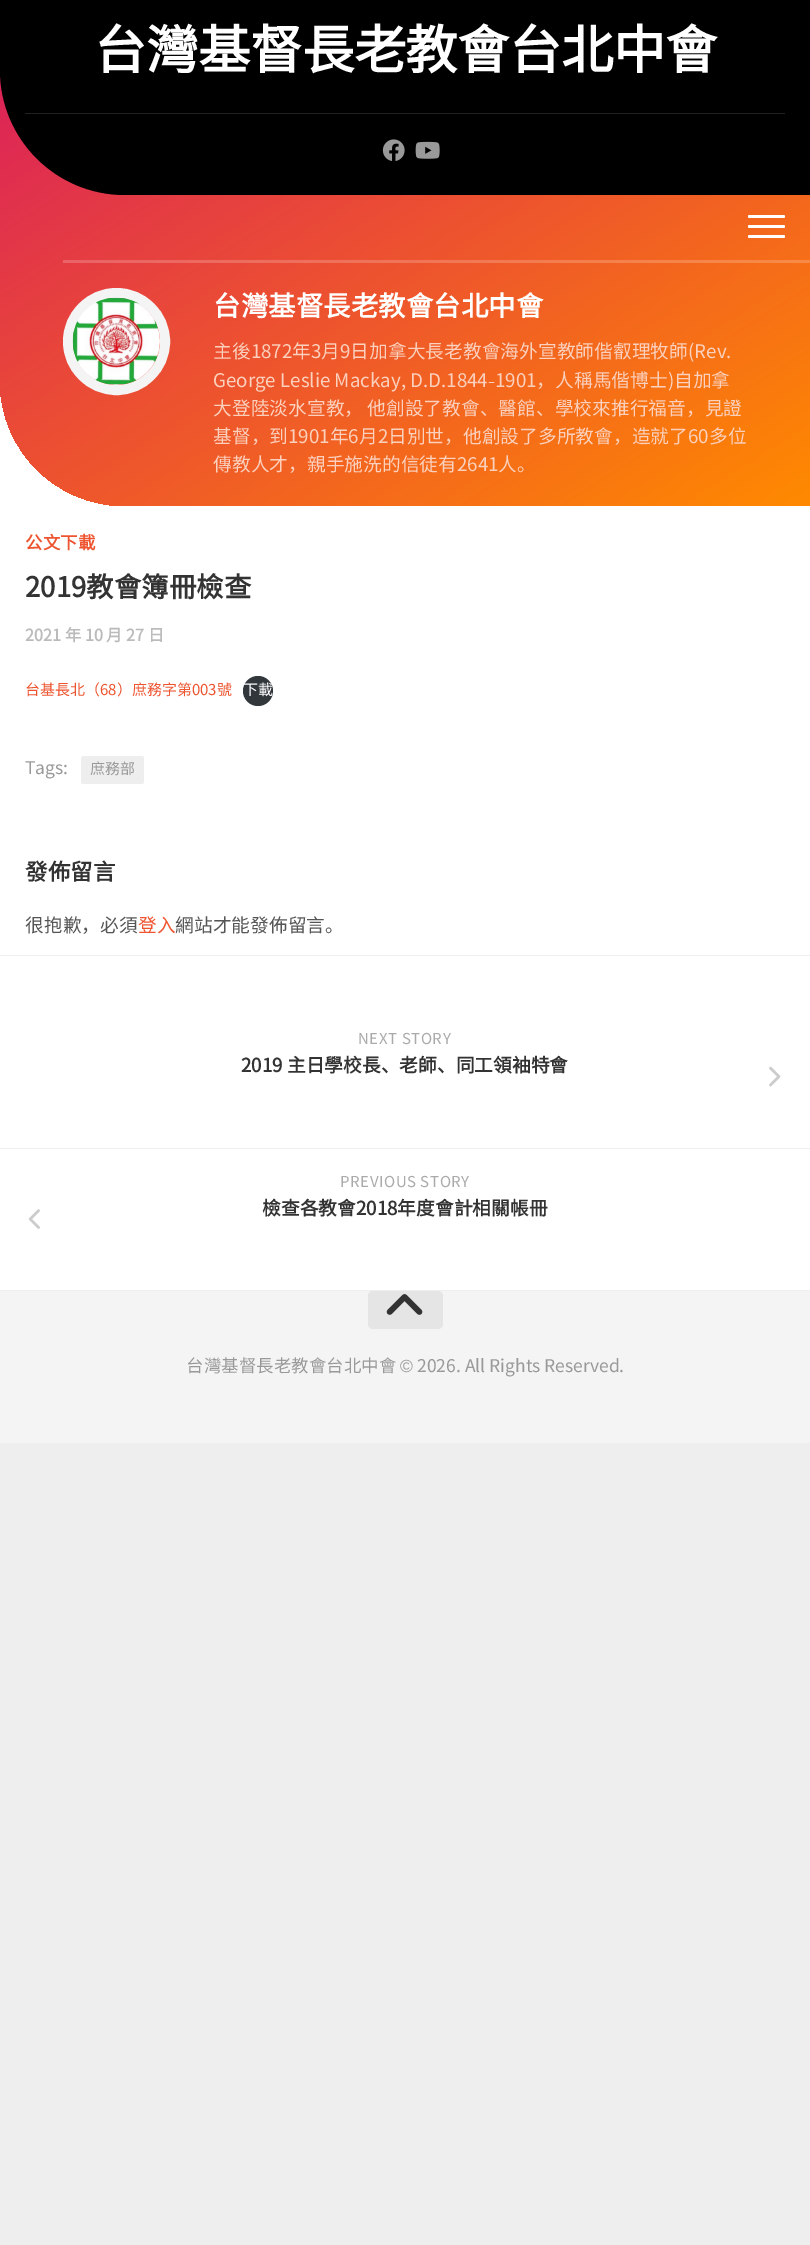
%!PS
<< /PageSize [810 2245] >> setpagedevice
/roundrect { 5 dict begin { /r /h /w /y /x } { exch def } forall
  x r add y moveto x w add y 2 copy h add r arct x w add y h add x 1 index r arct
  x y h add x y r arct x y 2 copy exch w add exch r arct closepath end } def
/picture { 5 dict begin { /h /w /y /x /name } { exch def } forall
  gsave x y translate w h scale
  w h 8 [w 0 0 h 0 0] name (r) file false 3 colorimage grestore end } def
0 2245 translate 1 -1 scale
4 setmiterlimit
0.933 setgray
0 0 810 2245 rectfill
1 setgray
0 381 124 125 rectfill
gsave newpath 0 0 moveto 810 0 lineto 810 506 lineto 125 506 lineto 56 506 0 450 0 381 curveto closepath clip newpath
<< /ShadingType 2 /ColorSpace /DeviceRGB /Coords [633 617 177 -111] /Extend [true true] /Function << /FunctionType 2 /Domain [0 1] /C0 [1 0.541 0] /C1 [0.855 0.106 0.376] /N 1 >> >> shfill grestore
gsave newpath 63 260 moveto 810 260 lineto 810 263 lineto 63 263 lineto closepath clip newpath
<< /ShadingType 2 /ColorSpace /DeviceRGB /Coords [633 617 177 -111] /Extend [true true] /Function << /FunctionType 2 /Domain [0 1] /C0 [1 0.631 0.2] /C1 [0.882 0.286 0.502] /N 1 >> >> shfill grestore
0 setgray
newpath 0 0 moveto 810 0 lineto 810 195 lineto 125 195 lineto 56 195 0 139 0 70 curveto closepath fill
0.133 setgray
25 113 760 1 rectfill
/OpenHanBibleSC-Bold [52.5 0 0 -52.5 0 0] selectfont
1 setgray
94 69 moveto -0.6 0 (台灣基督長老教會台北中會) ashow
(img1.rgb) 382 139 23 22 picture
(img2.rgb) 415 141 25 18 picture
748 215 37 3 1.5 roundrect fill
748 225 37 3 1.5 roundrect fill
748 235 37 3 1.5 roundrect fill
0.957 setgray
10 setlinewidth
newpath 116.5 341.5 48.5 0 360 arc closepath stroke
(img3.rgb) 72 297 88 88 picture
/OpenHanBibleSC-Bold [27.5 0 0 -27.5 0 0] selectfont
1 setgray
213 316 moveto (台灣基督長老教會台北中會) show
/OpenHanBibleSC-Light [18.75 0 0 -18.75 0 0] selectfont
0.984 0.816 0.741 setrgbcolor
213 358 moveto (主後1872年3月9日加拿大長老教會海外宣教師偕叡理牧師\(Rev.) show
213 387 moveto (George Leslie Mackay, D.D.1844-1901，人稱馬偕博士\)自加拿) show
213 415 moveto (大登陸淡水宣教， 他創設了教會、醫館、學校來推行福音，見證) show
213 443 moveto (基督，到1901年6月2日別世，他創設了多所教會，造就了60多位) show
213 471 moveto (傳教人才，親手施洗的信徒有2641人。) show
1 setgray
0 506 810 784 rectfill
/OpenHanBibleSC-Bold [17.5 0 0 -17.5 0 0] selectfont
0.929 0.329 0.184 setrgbcolor
25 549 moveto (公文下載) show
/OpenHanBibleSC-Bold [27.5 0 0 -27.5 0 0] selectfont
0.2 setgray
25 597 moveto (2019教會簿冊檢查) show
/OpenHanBibleSC-Bold [16.25 0 0 -16.25 0 0] selectfont
0.733 setgray
25 641 moveto (2021 年 10 月 27 日) show
/OpenHanBibleSC-Light [15 0 0 -15 0 0] selectfont
0.929 0.329 0.184 setrgbcolor
25 695 moveto (台基長北（68）庶務字第003號) show
0.196 0.216 0.235 setrgbcolor
newpath 258 691 15 0 360 arc closepath fill
1 setgray
243 695 moveto (下載) show
/OpenHanBibleSC-Light [17.5 0 0 -17.5 0 0] selectfont
0.6 setgray
25 774 moveto (Tags:) show
0.933 setgray
81 756 63 28 2.5 roundrect fill
/OpenHanBibleSC-Light [15 0 0 -15 0 0] selectfont
0.6 setgray
90 774 moveto (庶務部) show
/OpenHanBibleSC-Bold [22.5 0 0 -22.5 0 0] selectfont
0.2 setgray
25 880 moveto (發佈留言) show
/OpenHanBibleSC-Light [18.75 0 0 -18.75 0 0] selectfont
0.333 setgray
25 932 moveto (很抱歉，必須) show
0.929 0.329 0.184 setrgbcolor
138 932 moveto (登入) show
0.333 setgray
175 932 moveto (網站才能發佈留言。) show
0.933 setgray
0 955 810 1 rectfill
0 1148 810 1 rectfill
/OpenHanBibleSC-Light [15 0 0 -15 0 0] selectfont
0.667 setgray
358 1044 moveto 0.6 0 (NEXT STORY) ashow
/OpenHanBibleSC-Bold [18.75 0 0 -18.75 0 0] selectfont
0.2 setgray
241 1072 moveto (2019 主日學校長、老師、同工領袖特會) show
(img4.rgb) 769 1066 12 21 picture
/OpenHanBibleSC-Light [15 0 0 -15 0 0] selectfont
0.667 setgray
340 1187 moveto 0.6 0 (PREVIOUS STORY) ashow
(img5.rgb) 28 1209 12 20 picture
/OpenHanBibleSC-Bold [18.75 0 0 -18.75 0 0] selectfont
0.2 setgray
262 1215 moveto (檢查各教會2018年度會計相關帳冊) show
0.957 setgray
0 1291 810 152 rectfill
0.898 setgray
368 1291 75 38 5 roundrect fill
(img6.rgb) 386 1294 37 21 picture
/OpenHanBibleSC-Light [17.5 0 0 -17.5 0 0] selectfont
0.6 setgray
186 1372 moveto (台灣基督長老教會台北中會) show
/LiberationSans-Regular [17.5 0 0 -17.5 0 0] selectfont
400 1372 moveto (©) show
/OpenHanBibleSC-Light [17.5 0 0 -17.5 0 0] selectfont
417 1372 moveto (2026. All Rights Reserved.) show
showpage
